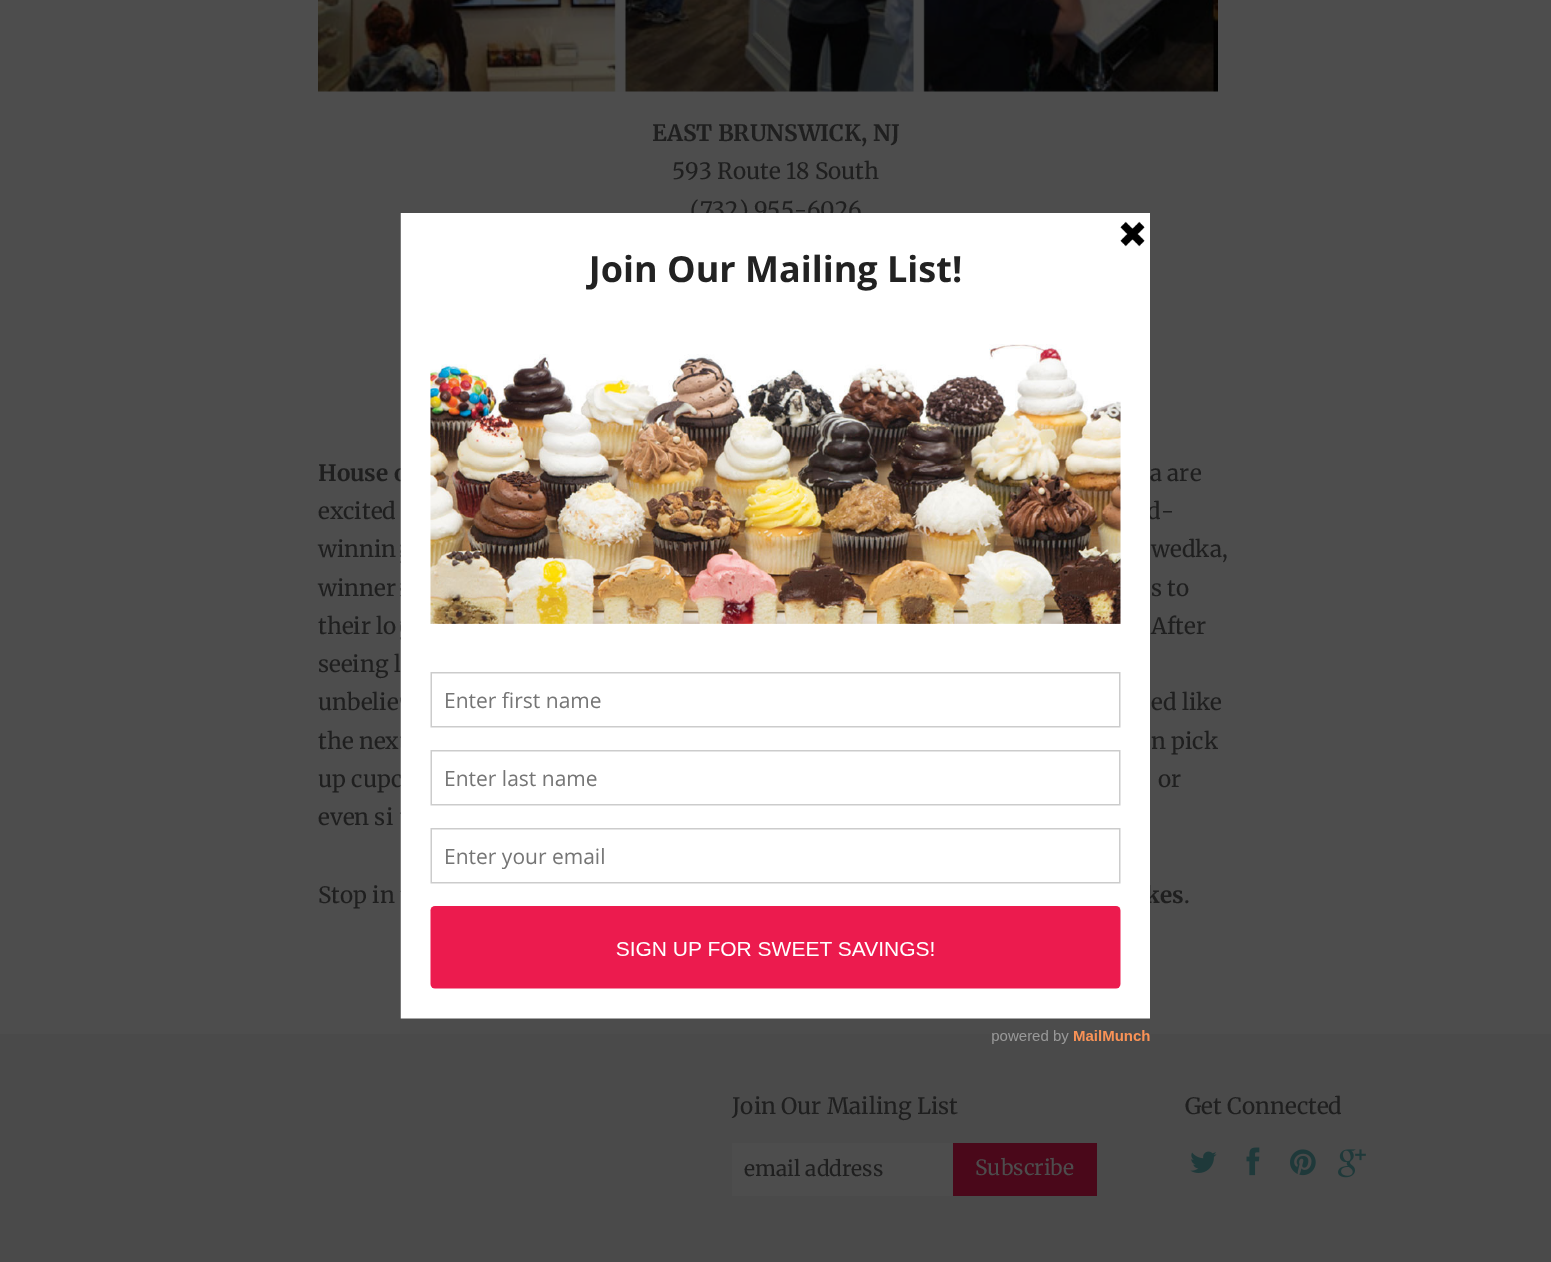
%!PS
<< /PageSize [1551 1262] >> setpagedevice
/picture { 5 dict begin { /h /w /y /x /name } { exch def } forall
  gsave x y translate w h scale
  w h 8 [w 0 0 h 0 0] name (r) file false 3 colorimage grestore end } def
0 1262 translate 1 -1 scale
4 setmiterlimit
0.302 setgray
0 0 1551 1262 rectfill
(img1.rgb) 318 0 900 92 picture
/Merriweather-Bold [22.5 0 0 -22.5 0 0] selectfont
0.122 setgray
652 141 moveto (EAST BRUNSWICK, NJ) show
/Merriweather-Regular [22.5 0 0 -22.5 0 0] selectfont
672 179 moveto (593 Route 18 South) show
690 218 moveto (\(732\) 955-6026) show
/Merriweather-Bold [22.5 0 0 -22.5 0 0] selectfont
318 481 moveto (House o) show
/Merriweather-Regular [22.5 0 0 -22.5 0 0] selectfont
1150 481 moveto (a are) show
318 519 moveto (excited) show
1147 519 moveto (d-) show
318 557 moveto (winnin) show
1151 557 moveto (wedka,) show
318 596 moveto (winner) show
1151 596 moveto (s to) show
318 634 moveto (their lo) show
1151 634 moveto (After) show
318 672 moveto (seeing l) show
318 710 moveto (unbelie) show
1151 710 moveto (ed like) show
318 749 moveto (the nex) show
1151 749 moveto (n pick) show
318 787 moveto (up cupc) show
1158 787 moveto (or) show
318 825 moveto (even si) show
318 903 moveto (Stop in) show
/Merriweather-Bold [22.5 0 0 -22.5 0 0] selectfont
1145 903 moveto (kes) show
/Merriweather-Regular [22.5 0 0 -22.5 0 0] selectfont
1184 903 moveto (.) show
0.29 setgray
0 1034 1551 228 rectfill
(img2.rgb) 400 213 750 831 picture
0.122 setgray
732 1114 moveto (Join Our Mailing List) show
0.302 setgray
732 1143 221 53 rectfill
/Merriweather-Regular [21 0 0 -21 0 0] selectfont
0.122 setgray
744 1176 moveto (email address) show
0.29 0.031 0.102 setrgbcolor
953 1143 144 53 rectfill
0.302 setgray
975 1175 moveto (Subscribe) show
/Merriweather-Regular [22.5 0 0 -22.5 0 0] selectfont
0.122 setgray
1185 1114 moveto (Get Connected) show
(img3.rgb) 1190 1151 27 22 picture
(img4.rgb) 1246 1147 14 29 picture
(img5.rgb) 1290 1149 26 27 picture
(img6.rgb) 1338 1149 28 29 picture
showpage
